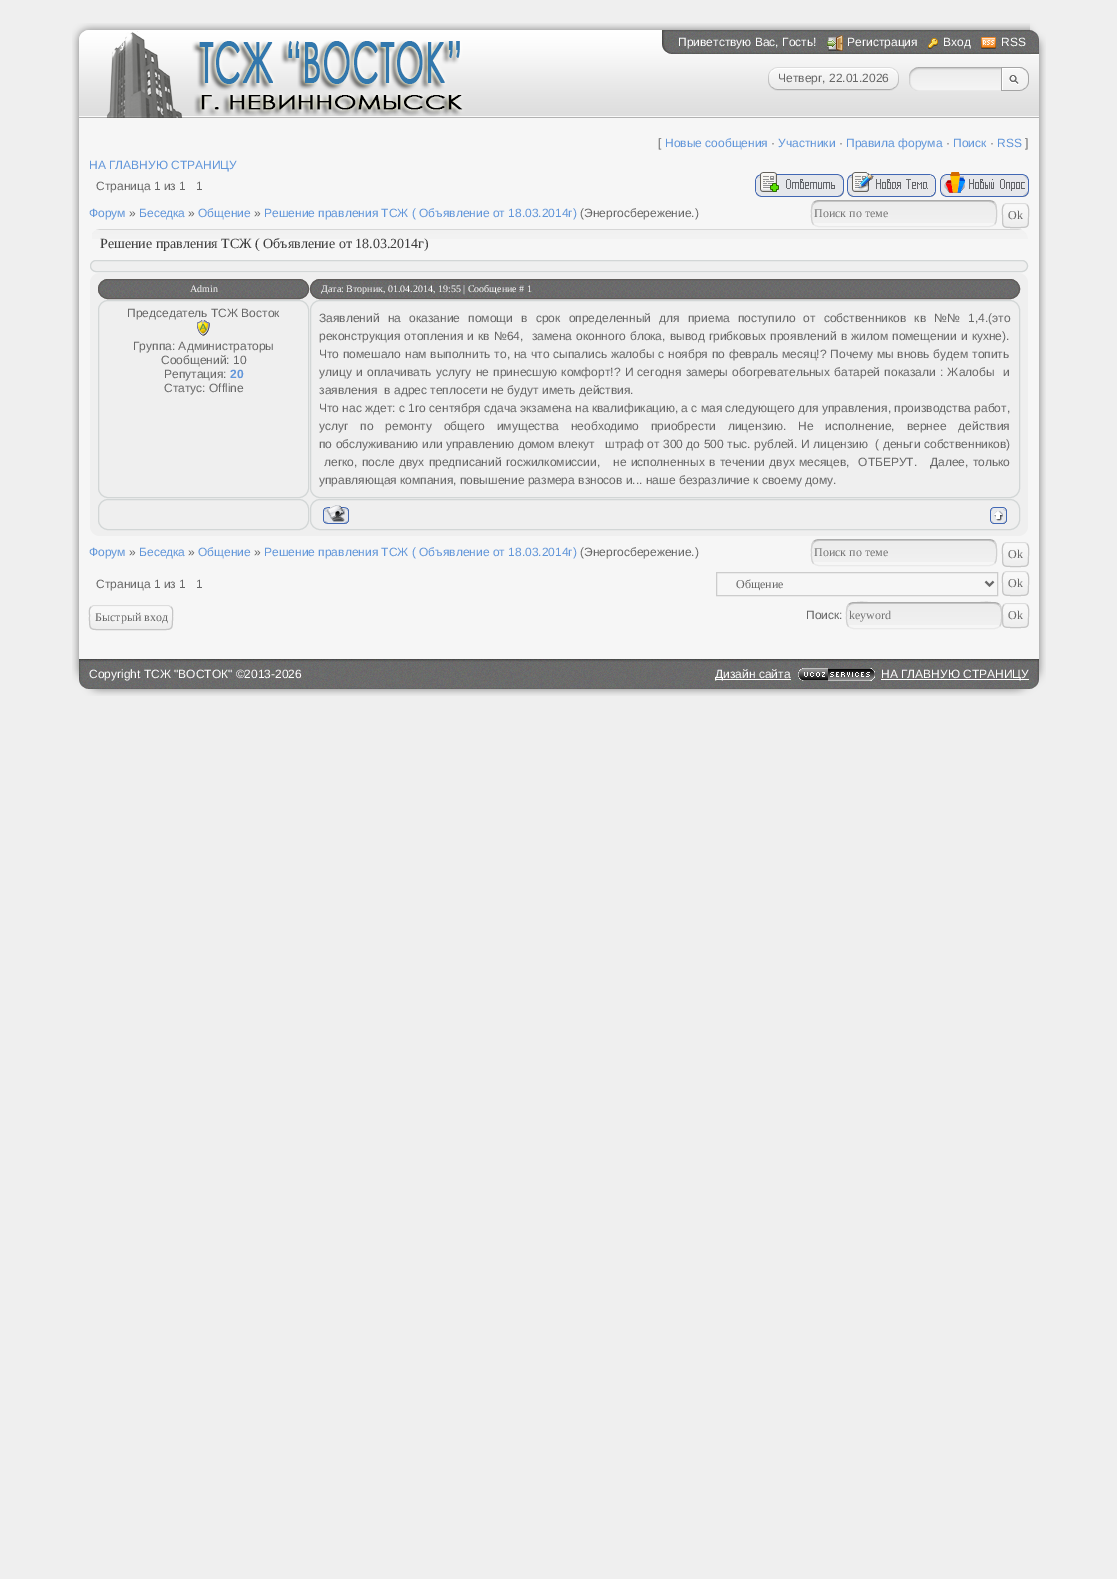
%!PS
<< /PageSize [1117 1579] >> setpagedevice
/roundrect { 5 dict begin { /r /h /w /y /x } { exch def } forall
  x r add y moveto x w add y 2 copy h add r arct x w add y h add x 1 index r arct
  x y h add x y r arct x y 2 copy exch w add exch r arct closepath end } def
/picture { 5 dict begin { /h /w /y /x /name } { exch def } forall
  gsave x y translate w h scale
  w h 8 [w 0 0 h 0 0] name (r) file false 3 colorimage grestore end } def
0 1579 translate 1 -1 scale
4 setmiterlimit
0.937 setgray
0 0 1117 1579 rectfill
(img1.rgb) 72 23 974 95 picture
(img2.rgb) 662 30 16 24 picture
(img3.rgb) 678 30 352 24 picture
/LiberationSans-Regular [12 0 0 -12 0 0] selectfont
1 setgray
678 46 moveto (Приветствую Вас, Гость!) show
(img4.rgb) 827 35 16 16 picture
847 46 moveto (Регистрация) show
(img5.rgb) 928 38 10 11 picture
943 46 moveto (Вход) show
(img6.rgb) 981 37 15 12 picture
1001 46 moveto (RSS) show
(img7.rgb) 768 67 10 24 picture
(img8.rgb) 778 67 111 24 picture
0.404 setgray
778 82 moveto (Четверг, 22.01.2026) show
(img9.rgb) 889 67 10 24 picture
(img10.rgb) 909 67 120 24 picture
(img11.rgb) 72 118 974 541 picture
658 147 moveto ([) show
0.38 0.588 0.855 setrgbcolor
665 147 moveto (Новые сообщения) show
0.404 setgray
771 147 moveto (·) show
0.38 0.588 0.855 setrgbcolor
778 147 moveto (Участники) show
0.404 setgray
839 147 moveto (·) show
0.38 0.588 0.855 setrgbcolor
846 147 moveto (Правила форума) show
0.404 setgray
946 147 moveto (·) show
0.38 0.588 0.855 setrgbcolor
953 147 moveto (Поиск) show
0.404 setgray
990 147 moveto (·) show
0.38 0.588 0.855 setrgbcolor
997 147 moveto (RSS) show
0.404 setgray
1025 147 moveto (]) show
0.38 0.588 0.855 setrgbcolor
89 169 moveto (НА ГЛАВНУЮ СТРАНИЦУ) show
0.404 setgray
96 190 moveto (Страница 1 из 1) show
196 190 moveto (1) show
(img12.rgb) 755 172 89 25 picture
(img13.rgb) 847 172 89 25 picture
(img14.rgb) 940 172 89 25 picture
0.38 0.588 0.855 setrgbcolor
89 217 moveto (Форум) show
0.404 setgray
129 217 moveto (») show
0.38 0.588 0.855 setrgbcolor
139 217 moveto (Беседка) show
0.404 setgray
188 217 moveto (») show
0.38 0.588 0.855 setrgbcolor
198 217 moveto (Общение) show
0.404 setgray
254 217 moveto (») show
0.38 0.588 0.855 setrgbcolor
264 217 moveto (Решение правления ТСЖ \( Объявление от 18.03.2014г\)) show
0.404 setgray
580 217 moveto (\(Энергосбережение.\)) show
(img15.rgb) 811 201 186 22 picture
0.804 setgray
newpath 819 202 moveto 989 202 lineto 993 202 996 205 996 209 curveto 996 208 lineto 996 204 993 201 989 201 curveto 819 201 lineto 815 201 812 204 812 208 curveto 812 209 lineto 812 205 815 202 819 202 curveto closepath fill
0.675 setgray
newpath 813.5 202.5 moveto 815 201.5 817 200.5 819 200.5 curveto 989 200.5 lineto 991 200.5 993 201.5 994.5 202.5 curveto stroke
0.816 setgray
newpath 994.5 202.5 moveto 997 205.5 996.5 210 996.5 213.5 curveto 996.5 217 997 221.5 994.5 224.5 curveto stroke
0.914 setgray
newpath 994.5 224.5 moveto 993 225.5 991 226.5 989 226.5 curveto 819 226.5 lineto 817 226.5 815 225.5 813.5 224.5 curveto stroke
0.816 setgray
newpath 813.5 224.5 moveto 811 221.5 811.5 217 811.5 213.5 curveto 811.5 210 811 205.5 813.5 202.5 curveto stroke
/LiberationSerif-Regular [12 0 0 -12 0 0] selectfont
0.459 setgray
814 217 moveto (Поиск по теме) show
(img16.rgb) 1002 204 27 24 picture
0.867 setgray
newpath 1004 205 moveto 1004.5 204 1006 203.5 1007 203.5 curveto 1024 203.5 lineto 1025 203.5 1026.5 204 1027 205 curveto stroke
0.776 setgray
newpath 1027 205 moveto 1029.5 207 1028.5 212.5 1028.5 215.5 curveto 1028.5 228.5 1029 227.5 1015.5 227.5 curveto 1002 227.5 1002.5 228.5 1002.5 215.5 curveto 1002.5 212.5 1001.5 207 1004 205 curveto stroke
0.404 setgray
1008 219 moveto (Ok) show
(img17.rgb) 92 229 936 10 picture
/LiberationSerif-Regular [14 0 0 -14 0 0] selectfont
0.239 setgray
100 248 moveto (Решение правления ТСЖ \( Объявление от 18.03.2014г\)) show
0.937 setgray
90.5 260.5 937 11 5.5 roundrect gsave fill grestore
0.824 0.839 0.839 setrgbcolor
stroke
0.937 setgray
90 273 938 263 10 roundrect fill
(img18.rgb) 98 279 211 20 picture
0.369 0.357 0.349 setrgbcolor
98.5 279.5 210 19 9.5 roundrect stroke
/LiberationSerif-Regular [10 0 0 -10 0 0] selectfont
1 setgray
190 292 moveto (Admin) show
(img19.rgb) 310 279 710 20 picture
0.369 0.357 0.349 setrgbcolor
310.5 279.5 709 19 9.5 roundrect stroke
1 setgray
321 292 moveto (Дата: Вторник, 01.04.2014, 19:55 | Сообщение # 1) show
0.824 0.839 0.839 setrgbcolor
98.5 300.5 210 197 9.5 roundrect stroke
/LiberationSans-Regular [12 0 0 -12 0 0] selectfont
0.404 setgray
127 317 moveto (Председатель ТСЖ Восток) show
(img20.rgb) 197 320 13 16 picture
133 350 moveto (Группа: Администраторы) show
161 364 moveto (Сообщений: 10) show
164 378 moveto (Репутация:) show
/LiberationSans-Bold [12 0 0 -12 0 0] selectfont
0.38 0.588 0.855 setrgbcolor
230 378 moveto (20) show
/LiberationSans-Regular [12 0 0 -12 0 0] selectfont
0.404 setgray
164 392 moveto (Статус: Offline) show
0.824 0.839 0.839 setrgbcolor
310.5 300.5 709 197 9.5 roundrect stroke
0.404 setgray
319 322 moveto 4.9 0 32 (Заявлений на оказание помощи в срок определенный для приема поступило от собственников кв №№ 1,4.\(это) widthshow
319 340 moveto 0.75 0 32 (реконструкция отопления и кв №64,  замена оконного блока, вывод грибковых проявлений в жилом помещении и кухне\).) widthshow
319 358 moveto 0.5 0 32 (Что помешало нам выполнить то, на что сыпались жалобы с ноября по февраль месяц!? Почему мы вновь будем топить) widthshow
319 376 moveto 1 0 32 (улицу и оплачивать услугу не принесшую комфорт!? И сегодня замеры обогревательных батарей показали : Жалобы  и) widthshow
319 394 moveto (заявления  в адрес теплосети не будут иметь действия.) show
319 412 moveto (Что нас ждет: с 1го сентября сдача экзамена на квалификацию, а с мая следующего для управления, производства работ,) show
319 430 moveto 8.6 0 32 (услуг по ремонту общего имущества необходимо приобрести лицензию. Не исполнение, вернее действия) widthshow
319 448 moveto 0.2 0 32 (по обслуживанию или управлению домом влекут   штраф от 300 до 500 тыс. рублей. И лицензию  \( деньги собственников\)) widthshow
324 466 moveto 1 0 32 (легко, после двух предписаний госжилкомиссии,   не исполненных в течении двух месяцев,  ОТБЕРУТ.   Далее, только) widthshow
319 484 moveto (управляющая компания, повышение размера взносов и... наше безразличие к своему дому.) show
0.824 0.839 0.839 setrgbcolor
98.5 499.5 210 30 9.5 roundrect stroke
310.5 499.5 709 30 9.5 roundrect stroke
(img21.rgb) 323 505 26 19 picture
(img22.rgb) 990 507 17 17 picture
0.38 0.588 0.855 setrgbcolor
89 556 moveto (Форум) show
0.404 setgray
129 556 moveto (») show
0.38 0.588 0.855 setrgbcolor
139 556 moveto (Беседка) show
0.404 setgray
188 556 moveto (») show
0.38 0.588 0.855 setrgbcolor
198 556 moveto (Общение) show
0.404 setgray
254 556 moveto (») show
0.38 0.588 0.855 setrgbcolor
264 556 moveto (Решение правления ТСЖ \( Объявление от 18.03.2014г\)) show
0.404 setgray
580 556 moveto (\(Энергосбережение.\)) show
(img15.rgb) 811 540 186 22 picture
0.804 setgray
newpath 819 541 moveto 989 541 lineto 993 541 996 544 996 548 curveto 996 547 lineto 996 543 993 540 989 540 curveto 819 540 lineto 815 540 812 543 812 547 curveto 812 548 lineto 812 544 815 541 819 541 curveto closepath fill
0.675 setgray
newpath 813.5 541.5 moveto 815 540.5 817 539.5 819 539.5 curveto 989 539.5 lineto 991 539.5 993 540.5 994.5 541.5 curveto stroke
0.816 setgray
newpath 994.5 541.5 moveto 997 544.5 996.5 549 996.5 552.5 curveto 996.5 556 997 560.5 994.5 563.5 curveto stroke
0.914 setgray
newpath 994.5 563.5 moveto 993 564.5 991 565.5 989 565.5 curveto 819 565.5 lineto 817 565.5 815 564.5 813.5 563.5 curveto stroke
0.816 setgray
newpath 813.5 563.5 moveto 811 560.5 811.5 556 811.5 552.5 curveto 811.5 549 811 544.5 813.5 541.5 curveto stroke
/LiberationSerif-Regular [12 0 0 -12 0 0] selectfont
0.459 setgray
814 556 moveto (Поиск по теме) show
(img16.rgb) 1002 543 27 24 picture
0.867 setgray
newpath 1004 544 moveto 1004.5 543 1006 542.5 1007 542.5 curveto 1024 542.5 lineto 1025 542.5 1026.5 543 1027 544 curveto stroke
0.776 setgray
newpath 1027 544 moveto 1029.5 546 1028.5 551.5 1028.5 554.5 curveto 1028.5 567.5 1029 566.5 1015.5 566.5 curveto 1002 566.5 1002.5 567.5 1002.5 554.5 curveto 1002.5 551.5 1001.5 546 1004 544 curveto stroke
0.404 setgray
1008 558 moveto (Ok) show
/LiberationSans-Regular [12 0 0 -12 0 0] selectfont
96 588 moveto (Страница 1 из 1) show
196 588 moveto (1) show
0.8 setgray
716.5 572.5 281 23 rectstroke
0.408 setgray
2 setlinewidth
newpath 985.5 581.5 moveto 989.5 585.5 lineto 993.5 581.5 lineto stroke
/LiberationSerif-Regular [12 0 0 -12 0 0] selectfont
0.404 setgray
736 588 moveto (Общение) show
(img16.rgb) 1002 572 27 24 picture
0.867 setgray
1 setlinewidth
newpath 1004 573 moveto 1004.5 572 1006 571.5 1007 571.5 curveto 1024 571.5 lineto 1025 571.5 1026.5 572 1027 573 curveto stroke
0.776 setgray
newpath 1027 573 moveto 1029.5 575 1028.5 580.5 1028.5 583.5 curveto 1028.5 596.5 1029 595.5 1015.5 595.5 curveto 1002 595.5 1002.5 596.5 1002.5 583.5 curveto 1002.5 580.5 1001.5 575 1004 573 curveto stroke
0.404 setgray
1008 587 moveto (Ok) show
(img23.rgb) 89 606 84 24 picture
0.867 setgray
newpath 91 607 moveto 93.5 605.5 lineto 168.5 605.5 lineto 171 607 lineto stroke
0.776 setgray
newpath 171 607 moveto 173.5 609 172.5 612.5 172.5 615 curveto 172.5 631.5 173.5 629.5 155.5 629.5 curveto 106.5 629.5 lineto 88.5 629.5 89.5 631.5 89.5 615 curveto 89.5 612.5 88.5 609 91 607 curveto stroke
0.404 setgray
95 621 moveto (Быстрый вход) show
/LiberationSans-Regular [12 0 0 -12 0 0] selectfont
806 619 moveto (Поиск:) show
(img24.rgb) 846 603 156 22 picture
0.804 setgray
newpath 854 604 moveto 994 604 lineto 998 604 1001 607 1001 611 curveto 1001 597 976 603 971 603 curveto 877 603 lineto 872 603 847 597 847 611 curveto 847 607 850 604 854 604 curveto closepath fill
0.675 setgray
newpath 848.5 604.5 moveto 850 603.5 852 602.5 854 602.5 curveto 994 602.5 lineto 996 602.5 998 603.5 999.5 604.5 curveto stroke
0.816 setgray
newpath 999.5 604.5 moveto 1002 607.5 1001.5 612 1001.5 615.5 curveto 1001.5 619 1002 623.5 999.5 626.5 curveto stroke
0.914 setgray
newpath 999.5 626.5 moveto 998 627.5 996 628.5 994 628.5 curveto 854 628.5 lineto 852 628.5 850 627.5 848.5 626.5 curveto stroke
0.816 setgray
newpath 848.5 626.5 moveto 846 623.5 846.5 619 846.5 615.5 curveto 846.5 612 846 607.5 848.5 604.5 curveto stroke
/LiberationSerif-Regular [12 0 0 -12 0 0] selectfont
0.459 setgray
849 619 moveto (keyword) show
(img16.rgb) 1002 604 27 24 picture
0.867 setgray
newpath 1004 605 moveto 1004.5 604 1006 603.5 1007 603.5 curveto 1024 603.5 lineto 1025 603.5 1026.5 604 1027 605 curveto stroke
0.776 setgray
newpath 1027 605 moveto 1029.5 607 1028.5 612.5 1028.5 615.5 curveto 1028.5 628.5 1029 627.5 1015.5 627.5 curveto 1002 627.5 1002.5 628.5 1002.5 615.5 curveto 1002.5 612.5 1001.5 607 1004 605 curveto stroke
0.404 setgray
1008 619 moveto (Ok) show
(img25.rgb) 72 659 974 37 picture
/LiberationSans-Regular [12 0 0 -12 0 0] selectfont
1 setgray
89 678 moveto (Copyright ТСЖ "ВОСТОК" ©2013-2026) show
715 679 76 1 rectfill
715 678 moveto (Дизайн сайта) show
(img26.rgb) 798 668 77 13 picture
881 679 148 1 rectfill
881 678 moveto (НА ГЛАВНУЮ СТРАНИЦУ) show
showpage
